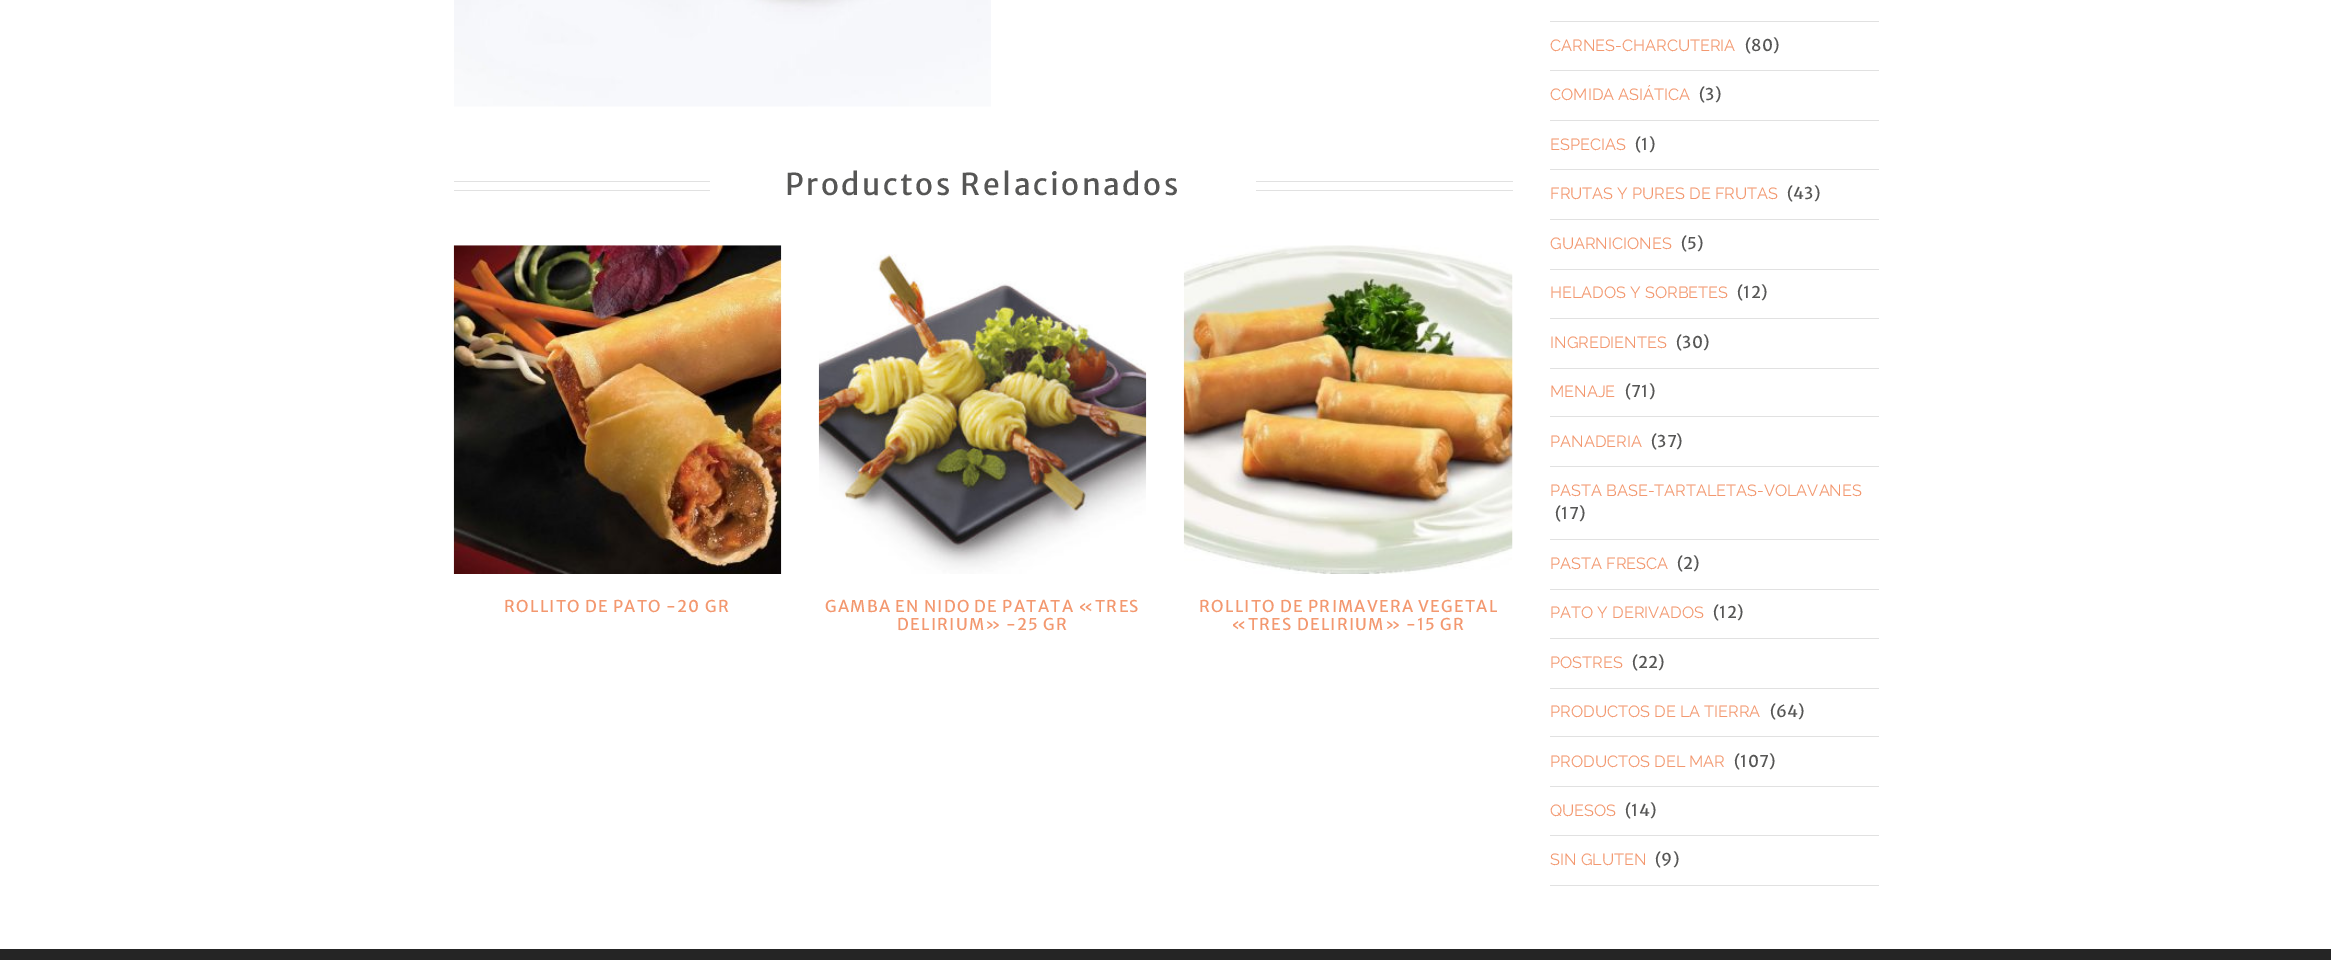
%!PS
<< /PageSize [2331 960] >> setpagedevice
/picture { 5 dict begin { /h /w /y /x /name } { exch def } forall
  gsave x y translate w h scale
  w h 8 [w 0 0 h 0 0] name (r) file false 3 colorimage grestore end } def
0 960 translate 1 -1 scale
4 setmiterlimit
1 setgray
0 0 2331 960 rectfill
(img1.rgb) 454 0 537 107 picture
0.882 setgray
454 181 256 1 rectfill
454 190 256 1 rectfill
/MerriweatherSans-Regular [30 0 0 -30 0 0] selectfont
0.337 0.337 0.333 setrgbcolor
785 195 moveto 2.5 0 (Productos Relacionados) ashow
0.882 setgray
1256 181 257 1 rectfill
1256 190 257 1 rectfill
(img2.rgb) 453 245 329 329 picture
/MerriweatherSans-Regular [16.25 0 0 -16.25 0 0] selectfont
0.953 0.596 0.435 setrgbcolor
504 612 moveto 1.25 0 (ROLLITO DE PATO -20 GR) ashow
(img3.rgb) 818 254 329 320 picture
825 612 moveto 1.25 0 (GAMBA EN NIDO DE PATATA «TRES) ashow
897 630 moveto 1.25 0 (DELIRIUM» -25 GR) ashow
(img4.rgb) 1183 245 330 329 picture
1199 612 moveto 1.25 0 (ROLLITO DE PRIMAVERA VEGETAL) ashow
1231 630 moveto 1.25 0 («TRES DELIRIUM» -15 GR) ashow
0.882 setgray
1550 21 329 1 rectfill
1550 70 329 1 rectfill
/Raleway-Regular [16.25 0 0 -16.25 0 0] selectfont
0.953 0.596 0.435 setrgbcolor
1550 51 moveto (CARNES-CHARCUTERIA) show
/MerriweatherSans-Regular [16.25 0 0 -16.25 0 0] selectfont
0.337 0.337 0.333 setrgbcolor
1745 51 moveto (\(80\)) show
0.882 setgray
1550 120 329 1 rectfill
/Raleway-Regular [16.25 0 0 -16.25 0 0] selectfont
0.953 0.596 0.435 setrgbcolor
1550 100 moveto (COMIDA ASIÁTICA) show
/MerriweatherSans-Regular [16.25 0 0 -16.25 0 0] selectfont
0.337 0.337 0.333 setrgbcolor
1699 100 moveto (\(3\)) show
0.882 setgray
1550 169 329 1 rectfill
/Raleway-Regular [16.25 0 0 -16.25 0 0] selectfont
0.953 0.596 0.435 setrgbcolor
1550 150 moveto (ESPECIAS) show
/MerriweatherSans-Regular [16.25 0 0 -16.25 0 0] selectfont
0.337 0.337 0.333 setrgbcolor
1635 150 moveto (\(1\)) show
0.882 setgray
1550 219 329 1 rectfill
/Raleway-Regular [16.25 0 0 -16.25 0 0] selectfont
0.953 0.596 0.435 setrgbcolor
1550 199 moveto (FRUTAS Y PURES DE FRUTAS) show
/MerriweatherSans-Regular [16.25 0 0 -16.25 0 0] selectfont
0.337 0.337 0.333 setrgbcolor
1787 199 moveto (\(43\)) show
0.882 setgray
1550 269 329 1 rectfill
/Raleway-Regular [16.25 0 0 -16.25 0 0] selectfont
0.953 0.596 0.435 setrgbcolor
1550 249 moveto (GUARNICIONES) show
/MerriweatherSans-Regular [16.25 0 0 -16.25 0 0] selectfont
0.337 0.337 0.333 setrgbcolor
1681 249 moveto (\(5\)) show
0.882 setgray
1550 318 329 1 rectfill
/Raleway-Regular [16.25 0 0 -16.25 0 0] selectfont
0.953 0.596 0.435 setrgbcolor
1550 298 moveto (HELADOS Y SORBETES) show
/MerriweatherSans-Regular [16.25 0 0 -16.25 0 0] selectfont
0.337 0.337 0.333 setrgbcolor
1737 298 moveto (\(12\)) show
0.882 setgray
1550 368 329 1 rectfill
/Raleway-Regular [16.25 0 0 -16.25 0 0] selectfont
0.953 0.596 0.435 setrgbcolor
1550 348 moveto (INGREDIENTES) show
/MerriweatherSans-Regular [16.25 0 0 -16.25 0 0] selectfont
0.337 0.337 0.333 setrgbcolor
1676 348 moveto (\(30\)) show
0.882 setgray
1550 416 329 1 rectfill
/Raleway-Regular [16.25 0 0 -16.25 0 0] selectfont
0.953 0.596 0.435 setrgbcolor
1550 397 moveto (MENAJE) show
/MerriweatherSans-Regular [16.25 0 0 -16.25 0 0] selectfont
0.337 0.337 0.333 setrgbcolor
1625 397 moveto (\(71\)) show
0.882 setgray
1550 466 329 1 rectfill
/Raleway-Regular [16.25 0 0 -16.25 0 0] selectfont
0.953 0.596 0.435 setrgbcolor
1550 447 moveto (PANADERIA) show
/MerriweatherSans-Regular [16.25 0 0 -16.25 0 0] selectfont
0.337 0.337 0.333 setrgbcolor
1651 447 moveto (\(37\)) show
0.882 setgray
1550 539 329 1 rectfill
/Raleway-Regular [16.25 0 0 -16.25 0 0] selectfont
0.953 0.596 0.435 setrgbcolor
1550 496 moveto (PASTA BASE-TARTALETAS-VOLAVANES) show
/MerriweatherSans-Regular [16.25 0 0 -16.25 0 0] selectfont
0.337 0.337 0.333 setrgbcolor
1555 519 moveto (\(17\)) show
0.882 setgray
1550 589 329 1 rectfill
/Raleway-Regular [16.25 0 0 -16.25 0 0] selectfont
0.953 0.596 0.435 setrgbcolor
1550 569 moveto (PASTA FRESCA) show
/MerriweatherSans-Regular [16.25 0 0 -16.25 0 0] selectfont
0.337 0.337 0.333 setrgbcolor
1677 569 moveto (\(2\)) show
0.882 setgray
1550 638 329 1 rectfill
/Raleway-Regular [16.25 0 0 -16.25 0 0] selectfont
0.953 0.596 0.435 setrgbcolor
1550 618 moveto (PATO Y DERIVADOS) show
/MerriweatherSans-Regular [16.25 0 0 -16.25 0 0] selectfont
0.337 0.337 0.333 setrgbcolor
1713 618 moveto (\(12\)) show
0.882 setgray
1550 688 329 1 rectfill
/Raleway-Regular [16.25 0 0 -16.25 0 0] selectfont
0.953 0.596 0.435 setrgbcolor
1550 668 moveto (POSTRES) show
/MerriweatherSans-Regular [16.25 0 0 -16.25 0 0] selectfont
0.337 0.337 0.333 setrgbcolor
1632 668 moveto (\(22\)) show
0.882 setgray
1550 736 329 1 rectfill
/Raleway-Regular [16.25 0 0 -16.25 0 0] selectfont
0.953 0.596 0.435 setrgbcolor
1550 717 moveto (PRODUCTOS DE LA TIERRA) show
/MerriweatherSans-Regular [16.25 0 0 -16.25 0 0] selectfont
0.337 0.337 0.333 setrgbcolor
1770 717 moveto (\(64\)) show
0.882 setgray
1550 786 329 1 rectfill
/Raleway-Regular [16.25 0 0 -16.25 0 0] selectfont
0.953 0.596 0.435 setrgbcolor
1550 767 moveto (PRODUCTOS DEL MAR) show
/MerriweatherSans-Regular [16.25 0 0 -16.25 0 0] selectfont
0.337 0.337 0.333 setrgbcolor
1734 767 moveto (\(107\)) show
0.882 setgray
1550 835 329 1 rectfill
/Raleway-Regular [16.25 0 0 -16.25 0 0] selectfont
0.953 0.596 0.435 setrgbcolor
1550 816 moveto (QUESOS) show
/MerriweatherSans-Regular [16.25 0 0 -16.25 0 0] selectfont
0.337 0.337 0.333 setrgbcolor
1625 816 moveto (\(14\)) show
0.882 setgray
1550 885 329 1 rectfill
/Raleway-Regular [16.25 0 0 -16.25 0 0] selectfont
0.953 0.596 0.435 setrgbcolor
1550 865 moveto (SIN GLUTEN) show
/MerriweatherSans-Regular [16.25 0 0 -16.25 0 0] selectfont
0.337 0.337 0.333 setrgbcolor
1655 865 moveto (\(9\)) show
0.145 setgray
0 949 2331 11 rectfill
showpage
